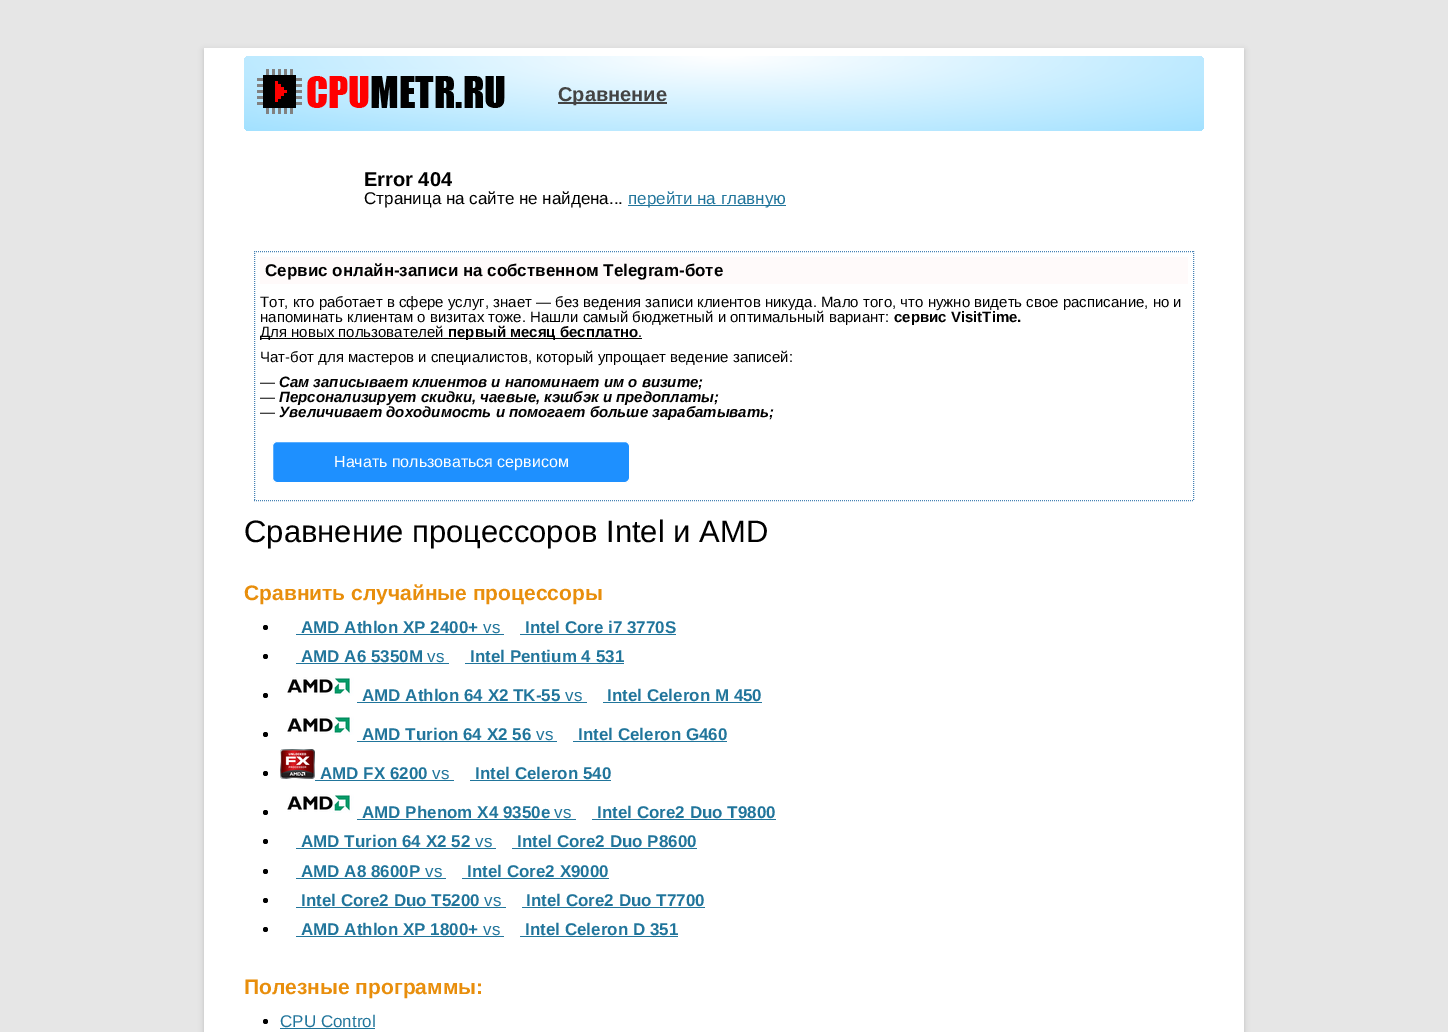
%!PS
<< /PageSize [1448 1032] /PageUsesTransparency true >> setpagedevice
/alpha { dup .setfillconstantalpha .setstrokeconstantalpha } def
/roundrect { 5 dict begin { /r /h /w /y /x } { exch def } forall
  x r add y moveto x w add y 2 copy h add r arct x w add y h add x 1 index r arct
  x y h add x y r arct x y 2 copy exch w add exch r arct closepath end } def
/shadow { 12 dict begin { /a /b /q /h /w /y /x } { exch def } forall gsave /was 0 def
  9 -2 -9 { dup b mul 4 div /e exch def 1 sub .425 mul 2.718 exch exp 1 add a .99 .min exch div /now exch def
    1 1 now sub 1 was sub div sub alpha /was now def
    w h .min e 2 mul add 0 gt { x e sub y e sub w e 2 mul add h e 2 mul add
      q e add b .6 mul add w h .min 2 div e add .min 0 .max roundrect fill } if } for grestore end } def
/picture { 5 dict begin { /h /w /y /x /name } { exch def } forall
  gsave x y translate w h scale
  w h 8 [w 0 0 h 0 0] name (r) file false 3 colorimage grestore end } def
0 .pushpdf14devicefilter
0 1032 translate 1 -1 scale
4 setmiterlimit
0.902 setgray
0 0 1448 1032 rectfill
0.392 setgray
204 50 1040 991 0 3 0.3 shadow
1 setgray
204 48 1040 984 rectfill
gsave 244 56 960 75 5 roundrect clip newpath 724 56 translate 679 106 scale
<< /ShadingType 3 /ColorSpace /DeviceRGB /Coords [0 0 0 0 0 1] /Extend [true true] /Function << /FunctionType 2 /Domain [0 1] /C0 [1 1 1] /C1 [0.635 0.882 1] /N 1 >> >> shfill grestore
(img1.rgb) 257 69 248 45 picture
0.267 setgray
558 102 109 2 rectfill
/LiberationSans-Bold [20 0 0 -20 0 0] selectfont
558 101 moveto (Сравнение) show
0 setgray
364 186 moveto (Error 404) show
/LiberationSans-Regular [17 0 0 -17 0 0] selectfont
364 204 moveto (Страница на сайте не найдена...) show
0.129 0.459 0.608 setrgbcolor
628 205 158 1 rectfill
628 204 moveto (перейти на главную) show
0.275 0.51 0.706 setrgbcolor
[1 1] 0 setdash
newpath 254 251.5 moveto 1194 251.5 lineto stroke
newpath 1193.5 251 moveto 1193.5 501 lineto stroke
newpath 254 500.5 moveto 1194 500.5 lineto stroke
newpath 254.5 251 moveto 254.5 501 lineto stroke
1 0.98 0.98 setrgbcolor
260 257 928 27 rectfill
/LiberationSans-Bold [17 0 0 -17 0 0] selectfont
0 setgray
265 276 moveto (Сервис онлайн-записи на собственном Telegram-боте) show
/LiberationSans-Regular [15 0 0 -15 0 0] selectfont
260 307 moveto (Тот, кто работает в сфере услуг, знает — без ведения записи клиентов никуда. Мало того, что нужно видеть свое расписание, но и) show
260 322 moveto (напоминать клиентам о визитах тоже. Нашли самый бюджетный и оптимальный вариант:) show
/LiberationSans-Bold [15 0 0 -15 0 0] selectfont
894 322 moveto (сервис VisitTime.) show
260 338 382 1 rectfill
/LiberationSans-Regular [15 0 0 -15 0 0] selectfont
260 337 moveto (Для новых пользователей) show
/LiberationSans-Bold [15 0 0 -15 0 0] selectfont
448 337 moveto (первый месяц бесплатно) show
/LiberationSans-Regular [15 0 0 -15 0 0] selectfont
638 337 moveto (.) show
260 362 moveto (Чат-бот для мастеров и специалистов, который упрощает ведение записей:) show
260 387 moveto (—) show
/LiberationSans-BoldItalic [15 0 0 -15 0 0] selectfont
279 387 moveto (Сам записывает клиентов и напоминает им о визите;) show
/LiberationSans-Regular [15 0 0 -15 0 0] selectfont
260 402 moveto (—) show
/LiberationSans-BoldItalic [15 0 0 -15 0 0] selectfont
279 402 moveto (Персонализирует скидки, чаевые, кэшбэк и предоплаты;) show
/LiberationSans-Regular [15 0 0 -15 0 0] selectfont
260 417 moveto (—) show
/LiberationSans-BoldItalic [15 0 0 -15 0 0] selectfont
279 417 moveto (Увеличивает доходимость и помогает больше зарабатывать;) show
0.118 0.565 1 setrgbcolor
272.5 441.5 357 41 4.5 roundrect gsave fill grestore
1 setgray
[] 0 setdash
stroke
/LiberationSans-Regular [16 0 0 -16 0 0] selectfont
334 467 moveto (Начать пользоваться сервисом) show
/LiberationSans-Regular [31 0 0 -31 0 0] selectfont
0 setgray
244 542 moveto (Сравнение процессоров Intel и AMD) show
/LiberationSans-Bold [21 0 0 -21 0 0] selectfont
0.91 0.557 0.047 setrgbcolor
244 600 moveto (Сравнить случайные процессоры) show
0 setgray
newpath 265.5 627.5 2.5 0 360 arc closepath fill
/LiberationSans-Bold [17 0 0 -17 0 0] selectfont
0.129 0.459 0.608 setrgbcolor
301 633 moveto (AMD Athlon XP 2400+) show
/LiberationSans-Regular [17 0 0 -17 0 0] selectfont
483 633 moveto (vs) show
296 634 208 1 rectfill
/LiberationSans-Bold [17 0 0 -17 0 0] selectfont
525 633 moveto (Intel Core i7 3770S) show
520 634 156 1 rectfill
0 setgray
newpath 265.5 656.5 2.5 0 360 arc closepath fill
0.129 0.459 0.608 setrgbcolor
301 662 moveto (AMD A6 5350M) show
/LiberationSans-Regular [17 0 0 -17 0 0] selectfont
427 662 moveto (vs) show
296 663 153 1 rectfill
/LiberationSans-Bold [17 0 0 -17 0 0] selectfont
470 662 moveto (Intel Pentium 4 531) show
465 663 159 1 rectfill
0 setgray
newpath 265.5 695.5 2.5 0 360 arc closepath fill
(img2.rgb) 287 677 67 19 picture
0.129 0.459 0.608 setrgbcolor
362 701 moveto (AMD Athlon 64 X2 TK-55) show
/LiberationSans-Regular [17 0 0 -17 0 0] selectfont
565 701 moveto (vs) show
357 702 230 1 rectfill
/LiberationSans-Bold [17 0 0 -17 0 0] selectfont
607 701 moveto (Intel Celeron M 450) show
603 702 159 1 rectfill
0 setgray
newpath 265.5 734.5 2.5 0 360 arc closepath fill
(img2.rgb) 287 716 67 19 picture
0.129 0.459 0.608 setrgbcolor
362 740 moveto (AMD Turion 64 X2 56) show
/LiberationSans-Regular [17 0 0 -17 0 0] selectfont
536 740 moveto (vs) show
357 741 200 1 rectfill
/LiberationSans-Bold [17 0 0 -17 0 0] selectfont
578 740 moveto (Intel Celeron G460) show
573 741 154 1 rectfill
0 setgray
newpath 265.5 773.5 2.5 0 360 arc closepath fill
(img3.rgb) 280 749 35 30 picture
0.129 0.459 0.608 setrgbcolor
320 779 moveto (AMD FX 6200) show
/LiberationSans-Regular [17 0 0 -17 0 0] selectfont
432 779 moveto (vs) show
315 780 139 1 rectfill
/LiberationSans-Bold [17 0 0 -17 0 0] selectfont
475 779 moveto (Intel Celeron 540) show
470 780 141 1 rectfill
0 setgray
newpath 265.5 812.5 2.5 0 360 arc closepath fill
(img2.rgb) 287 794 67 19 picture
0.129 0.459 0.608 setrgbcolor
362 818 moveto (AMD Phenom X4 9350e) show
/LiberationSans-Regular [17 0 0 -17 0 0] selectfont
554 818 moveto (vs) show
357 819 219 1 rectfill
/LiberationSans-Bold [17 0 0 -17 0 0] selectfont
597 818 moveto (Intel Core2 Duo T9800) show
592 819 184 1 rectfill
0 setgray
newpath 265.5 841.5 2.5 0 360 arc closepath fill
0.129 0.459 0.608 setrgbcolor
301 847 moveto (AMD Turion 64 X2 52) show
/LiberationSans-Regular [17 0 0 -17 0 0] selectfont
475 847 moveto (vs) show
296 848 200 1 rectfill
/LiberationSans-Bold [17 0 0 -17 0 0] selectfont
517 847 moveto (Intel Core2 Duo P8600) show
512 848 185 1 rectfill
0 setgray
newpath 265.5 871.5 2.5 0 360 arc closepath fill
0.129 0.459 0.608 setrgbcolor
301 877 moveto (AMD A8 8600P) show
/LiberationSans-Regular [17 0 0 -17 0 0] selectfont
425 877 moveto (vs) show
296 878 150 1 rectfill
/LiberationSans-Bold [17 0 0 -17 0 0] selectfont
467 877 moveto (Intel Core2 X9000) show
462 878 147 1 rectfill
0 setgray
newpath 265.5 900.5 2.5 0 360 arc closepath fill
0.129 0.459 0.608 setrgbcolor
301 906 moveto (Intel Core2 Duo T5200) show
/LiberationSans-Regular [17 0 0 -17 0 0] selectfont
484 906 moveto (vs) show
296 907 210 1 rectfill
/LiberationSans-Bold [17 0 0 -17 0 0] selectfont
526 906 moveto (Intel Core2 Duo T7700) show
522 907 183 1 rectfill
0 setgray
newpath 265.5 929.5 2.5 0 360 arc closepath fill
0.129 0.459 0.608 setrgbcolor
301 935 moveto (AMD Athlon XP 1800+) show
/LiberationSans-Regular [17 0 0 -17 0 0] selectfont
483 935 moveto (vs) show
296 936 208 1 rectfill
/LiberationSans-Bold [17 0 0 -17 0 0] selectfont
525 935 moveto (Intel Celeron D 351) show
520 936 158 1 rectfill
/LiberationSans-Bold [21 0 0 -21 0 0] selectfont
0.91 0.557 0.047 setrgbcolor
244 994 moveto (Полезные программы:) show
0 setgray
newpath 265.5 1021.5 2.5 0 360 arc closepath fill
/LiberationSans-Regular [17 0 0 -17 0 0] selectfont
0.129 0.459 0.608 setrgbcolor
280 1027 moveto (CPU Control) show
280 1028 95 1 rectfill
.poppdf14devicefilter showpage
